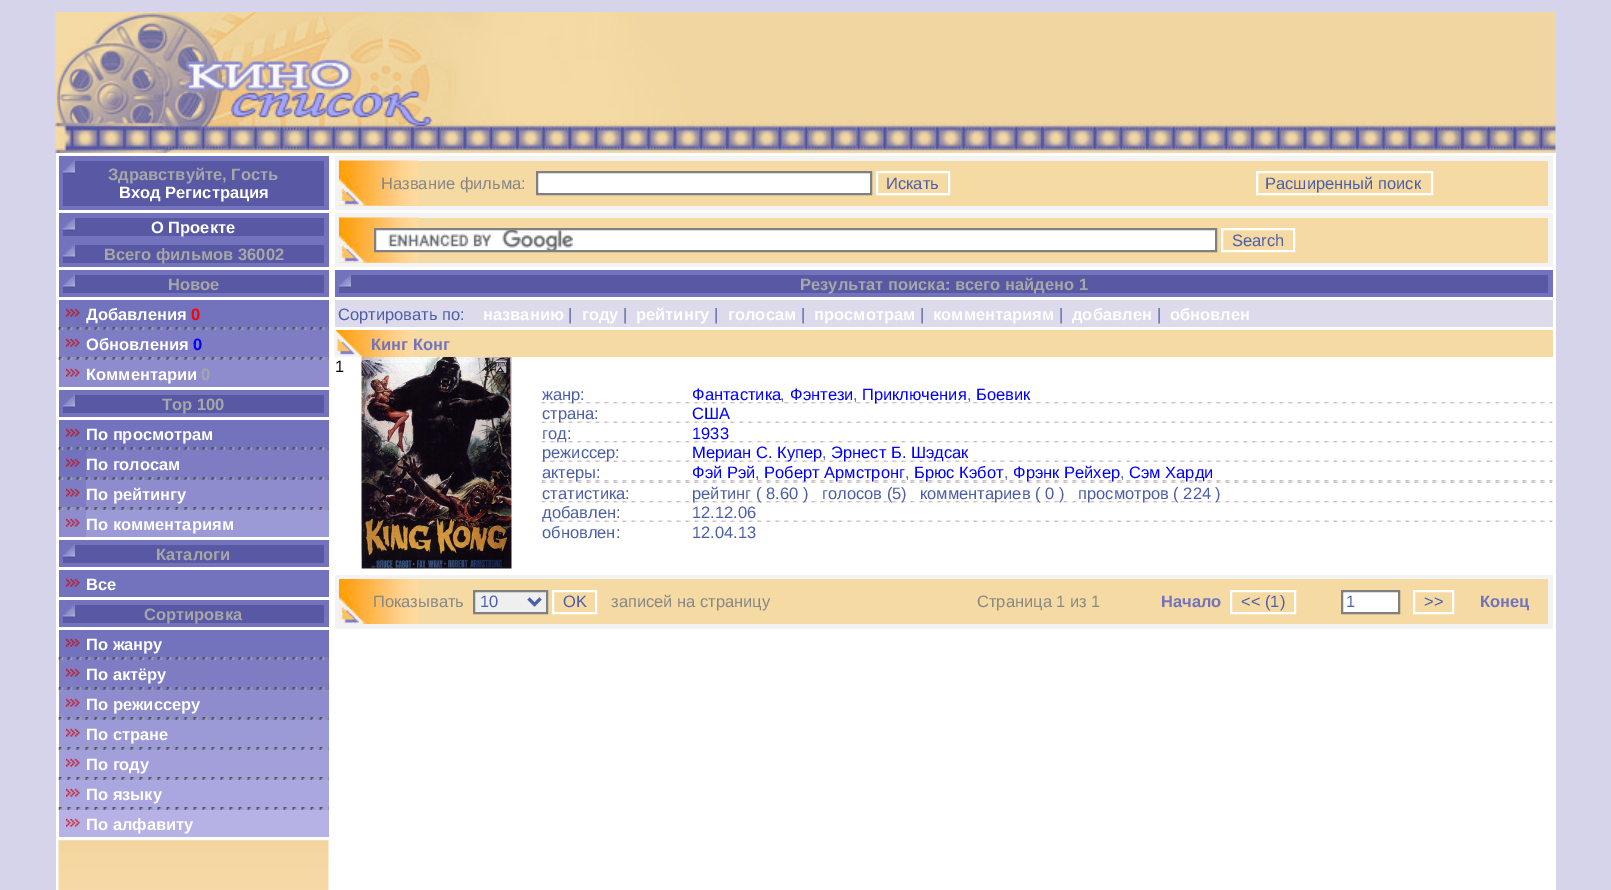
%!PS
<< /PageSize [1611 890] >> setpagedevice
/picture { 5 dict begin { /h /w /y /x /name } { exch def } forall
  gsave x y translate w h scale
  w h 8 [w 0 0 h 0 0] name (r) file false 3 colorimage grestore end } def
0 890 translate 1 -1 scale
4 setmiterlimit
0.839 0.831 0.918 setrgbcolor
0 0 1611 890 rectfill
0.961 0.855 0.639 setrgbcolor
1555 12 1 141 rectfill
(img1.rgb) 55 12 1501 141 picture
1 setgray
56 153 1500 737 rectfill
0.451 0.451 0.741 setrgbcolor
59 156 270 54 rectfill
0.345 0.345 0.647 setrgbcolor
63 161 261 45 rectfill
(img2.rgb) 63 160 12 14 picture
/LiberationSans-Bold [16.5 0 0 -16.5 0 0] selectfont
0.655 setgray
108 180 moveto (Здравствуйте, Гость) show
1 setgray
119 198 moveto (Вход Регистрация) show
0.451 0.451 0.741 setrgbcolor
59 213 270 54 rectfill
0.345 0.345 0.647 setrgbcolor
63 218 261 18 rectfill
(img2.rgb) 63 217 12 14 picture
1 setgray
151 233 moveto (О Проекте) show
0.345 0.345 0.647 setrgbcolor
63 245 261 18 rectfill
(img2.rgb) 63 244 12 14 picture
0.655 setgray
104 260 moveto (Всего фильмов 36002) show
0.451 0.451 0.741 setrgbcolor
59 270 270 27 rectfill
0.345 0.345 0.647 setrgbcolor
63 275 261 18 rectfill
(img2.rgb) 63 274 12 14 picture
0.655 setgray
168 290 moveto (Новое) show
0.451 0.451 0.741 setrgbcolor
59 300 270 27 rectfill
(img3.rgb) 66 308 14 9 picture
1 setgray
86 320 moveto (Добавления) show
1 0 0 setrgbcolor
191 320 moveto (0) show
0.494 0.49 0.769 setrgbcolor
59 327 270 3 rectfill
(img4.rgb) 58 327 271 3 picture
59 330 270 27 rectfill
(img5.rgb) 66 338 14 9 picture
1 setgray
86 350 moveto (Обновления) show
0 0 1 setrgbcolor
193 350 moveto (0) show
0.557 0.549 0.804 setrgbcolor
59 357 270 3 rectfill
(img6.rgb) 58 357 271 3 picture
59 360 270 27 rectfill
(img7.rgb) 66 368 14 9 picture
1 setgray
86 380 moveto (Комментарии) show
0.655 setgray
201 380 moveto (0) show
0.451 0.451 0.741 setrgbcolor
59 390 270 27 rectfill
0.345 0.345 0.647 setrgbcolor
63 395 261 18 rectfill
(img2.rgb) 63 394 12 14 picture
0.655 setgray
162 410 moveto (Top 100) show
0.451 0.451 0.741 setrgbcolor
59 420 270 30 rectfill
(img3.rgb) 66 428 14 9 picture
1 setgray
86 440 moveto (По просмотрам) show
(img8.rgb) 58 447 271 3 picture
0.451 0.451 0.741 setrgbcolor
59 450 27 27 rectfill
(img3.rgb) 66 458 14 9 picture
0.494 0.49 0.769 setrgbcolor
86 450 243 27 rectfill
1 setgray
86 470 moveto (По голосам) show
0.494 0.49 0.769 setrgbcolor
59 477 270 3 rectfill
(img4.rgb) 58 477 271 3 picture
59 480 27 27 rectfill
(img5.rgb) 66 488 14 9 picture
0.557 0.549 0.804 setrgbcolor
86 480 243 27 rectfill
1 setgray
86 500 moveto (По рейтингу) show
0.557 0.549 0.804 setrgbcolor
59 507 270 3 rectfill
(img6.rgb) 58 507 271 3 picture
59 510 27 27 rectfill
(img7.rgb) 66 518 14 9 picture
0.612 0.6 0.843 setrgbcolor
86 510 243 27 rectfill
1 setgray
86 530 moveto (По комментариям) show
0.451 0.451 0.741 setrgbcolor
59 540 270 27 rectfill
0.345 0.345 0.647 setrgbcolor
63 545 261 18 rectfill
(img2.rgb) 63 544 12 14 picture
0.655 setgray
156 560 moveto (Каталоги) show
0.451 0.451 0.741 setrgbcolor
59 570 270 27 rectfill
(img3.rgb) 66 578 14 9 picture
1 setgray
86 590 moveto (Все) show
0.451 0.451 0.741 setrgbcolor
59 600 270 27 rectfill
0.345 0.345 0.647 setrgbcolor
63 605 261 18 rectfill
(img2.rgb) 63 604 12 14 picture
0.655 setgray
144 620 moveto (Сортировка) show
0.451 0.451 0.741 setrgbcolor
59 630 270 27 rectfill
(img3.rgb) 66 638 14 9 picture
1 setgray
86 650 moveto (По жанру) show
0.494 0.49 0.769 setrgbcolor
59 657 270 3 rectfill
(img4.rgb) 58 657 271 3 picture
59 660 270 30 rectfill
(img5.rgb) 66 668 14 9 picture
1 setgray
86 680 moveto (По актёру) show
(img4.rgb) 58 687 271 3 picture
0.557 0.549 0.804 setrgbcolor
59 690 270 30 rectfill
(img7.rgb) 66 698 14 9 picture
1 setgray
86 710 moveto (По режиссеру) show
(img9.rgb) 58 717 271 3 picture
0.612 0.6 0.843 setrgbcolor
59 720 270 30 rectfill
(img10.rgb) 66 728 14 9 picture
1 setgray
86 740 moveto (По стране) show
(img11.rgb) 58 747 271 3 picture
0.639 0.624 0.859 setrgbcolor
59 750 270 30 rectfill
(img12.rgb) 66 758 14 9 picture
1 setgray
86 770 moveto (По году) show
(img13.rgb) 58 777 271 3 picture
0.667 0.651 0.875 setrgbcolor
59 780 270 30 rectfill
(img14.rgb) 66 788 14 9 picture
1 setgray
86 800 moveto (По языку) show
(img15.rgb) 58 807 271 3 picture
0.718 0.698 0.902 setrgbcolor
59 810 270 27 rectfill
(img16.rgb) 66 818 14 9 picture
1 setgray
86 830 moveto (По алфавиту) show
(img17.rgb) 58 840 271 50 picture
0.953 setgray
335 156 1218 54 rectfill
0.961 0.855 0.639 setrgbcolor
339 161 1209 45 rectfill
(img18.rgb) 339 160 80 46 picture
/LiberationSans-Regular [16.5 0 0 -16.5 0 0] selectfont
0.529 setgray
381 189 moveto (Название фильма:) show
1 setgray
newpath 537 172 moveto 871 172 lineto 871 194 lineto 537 194 lineto closepath gsave fill grestore
0.502 setgray
2 setlinewidth
stroke
1 setgray
877 172 72 22 rectstroke
0.298 0.369 0.659 setrgbcolor
886 189 moveto (Искать) show
1 setgray
1257 172 175 22 rectstroke
0.298 0.369 0.659 setrgbcolor
1265 189 moveto (Расширенный поиск) show
0.953 setgray
335 213 1218 54 rectfill
0.961 0.855 0.639 setrgbcolor
339 218 1209 45 rectfill
(img18.rgb) 339 217 80 46 picture
1 setgray
376 230 839 20 rectfill
(img19.rgb) 388 230 185 20 picture
0.502 setgray
375 229 841 22 rectstroke
1 setgray
1222 229 72 22 rectstroke
0.298 0.369 0.659 setrgbcolor
1232 246 moveto (Search) show
0.451 0.451 0.741 setrgbcolor
335 270 1218 27 rectfill
0.345 0.345 0.647 setrgbcolor
339 275 1209 18 rectfill
(img20.rgb) 339 274 12 14 picture
/LiberationSans-Bold [16.5 0 0 -16.5 0 0] selectfont
0.655 setgray
800 290 moveto (Результат поиска: всего найдено 1) show
0.867 0.859 0.922 setrgbcolor
335 300 1218 27 rectfill
/LiberationSans-Regular [16.5 0 0 -16.5 0 0] selectfont
0.298 0.369 0.659 setrgbcolor
338 320 moveto (Сортировать по:) show
/LiberationSans-Bold [16.5 0 0 -16.5 0 0] selectfont
1 setgray
483 320 moveto (названию) show
/LiberationSans-Regular [16.5 0 0 -16.5 0 0] selectfont
0.298 0.369 0.659 setrgbcolor
568 320 moveto (|) show
/LiberationSans-Bold [16.5 0 0 -16.5 0 0] selectfont
1 setgray
582 320 moveto (году) show
/LiberationSans-Regular [16.5 0 0 -16.5 0 0] selectfont
0.298 0.369 0.659 setrgbcolor
623 320 moveto (|) show
/LiberationSans-Bold [16.5 0 0 -16.5 0 0] selectfont
1 setgray
636 320 moveto (рейтингу) show
/LiberationSans-Regular [16.5 0 0 -16.5 0 0] selectfont
0.298 0.369 0.659 setrgbcolor
714 320 moveto (|) show
/LiberationSans-Bold [16.5 0 0 -16.5 0 0] selectfont
1 setgray
728 320 moveto (голосам) show
/LiberationSans-Regular [16.5 0 0 -16.5 0 0] selectfont
0.298 0.369 0.659 setrgbcolor
801 320 moveto (|) show
/LiberationSans-Bold [16.5 0 0 -16.5 0 0] selectfont
1 setgray
814 320 moveto (просмотрам) show
/LiberationSans-Regular [16.5 0 0 -16.5 0 0] selectfont
0.298 0.369 0.659 setrgbcolor
920 320 moveto (|) show
/LiberationSans-Bold [16.5 0 0 -16.5 0 0] selectfont
1 setgray
933 320 moveto (комментариям) show
/LiberationSans-Regular [16.5 0 0 -16.5 0 0] selectfont
0.298 0.369 0.659 setrgbcolor
1059 320 moveto (|) show
/LiberationSans-Bold [16.5 0 0 -16.5 0 0] selectfont
1 setgray
1072 320 moveto (добавлен) show
/LiberationSans-Regular [16.5 0 0 -16.5 0 0] selectfont
0.298 0.369 0.659 setrgbcolor
1157 320 moveto (|) show
/LiberationSans-Bold [16.5 0 0 -16.5 0 0] selectfont
1 setgray
1170 320 moveto (обновлен) show
0.961 0.855 0.639 setrgbcolor
414 330 1139 27 rectfill
(img21.rgb) 334 330 80 27 picture
0.451 0.451 0.741 setrgbcolor
371 350 moveto (Кинг Конг) show
/LiberationSans-Regular [16.5 0 0 -16.5 0 0] selectfont
0 setgray
335 372 moveto (1) show
(img22.rgb) 361 357 151 212 picture
(img23.rgb) 541 402 1012 2 picture
0.298 0.369 0.659 setrgbcolor
542 400 moveto (жанр:) show
0 0 1 setrgbcolor
692 400 moveto (Фантастика) show
0.298 0.369 0.659 setrgbcolor
780 400 moveto (,) show
0 0 1 setrgbcolor
790 400 moveto (Фэнтези) show
0.298 0.369 0.659 setrgbcolor
853 400 moveto (,) show
0 0 1 setrgbcolor
862 400 moveto (Приключения) show
0.298 0.369 0.659 setrgbcolor
967 400 moveto (,) show
0 0 1 setrgbcolor
976 400 moveto (Боевик) show
(img24.rgb) 541 421 1012 2 picture
0.298 0.369 0.659 setrgbcolor
542 419 moveto (страна:) show
0 0 1 setrgbcolor
692 419 moveto (США) show
(img23.rgb) 541 441 1012 2 picture
0.298 0.369 0.659 setrgbcolor
542 439 moveto (год:) show
0 0 1 setrgbcolor
692 439 moveto (1933) show
(img24.rgb) 541 460 1012 2 picture
0.298 0.369 0.659 setrgbcolor
542 458 moveto (режиссер:) show
0 0 1 setrgbcolor
692 458 moveto (Мериан С. Купер) show
0.298 0.369 0.659 setrgbcolor
822 458 moveto (,) show
0 0 1 setrgbcolor
831 458 moveto (Эрнест Б. Шэдсак) show
(img23.rgb) 541 480 1012 2 picture
(img25.rgb) 541 481 1012 2 picture
0.298 0.369 0.659 setrgbcolor
542 478 moveto (актеры:) show
0 0 1 setrgbcolor
692 478 moveto (Фэй Рэй) show
0.298 0.369 0.659 setrgbcolor
755 478 moveto (,) show
0 0 1 setrgbcolor
764 478 moveto (Роберт Армстронг) show
0.298 0.369 0.659 setrgbcolor
905 478 moveto (,) show
0 0 1 setrgbcolor
914 478 moveto (Брюс Кэбот) show
0.298 0.369 0.659 setrgbcolor
1004 478 moveto (,) show
0 0 1 setrgbcolor
1013 478 moveto (Фрэнк Рейхер) show
0.298 0.369 0.659 setrgbcolor
1120 478 moveto (,) show
0 0 1 setrgbcolor
1129 478 moveto (Сэм Харди) show
0.298 0.369 0.659 setrgbcolor
542 499 moveto (статистика:) show
(img23.rgb) 541 501 1012 2 picture
692 499 moveto (рейтинг \( 8.60 \)) show
822 499 moveto (голосов \(5\)) show
920 499 moveto (комментариев \( 0 \)) show
1078 499 moveto (просмотров \( 224 \)) show
(img24.rgb) 541 520 1012 2 picture
542 518 moveto (добавлен:) show
692 518 moveto (12.12.06) show
542 538 moveto (обновлен:) show
692 538 moveto (12.04.13) show
0.953 setgray
335 575 1218 54 rectfill
0.961 0.855 0.639 setrgbcolor
418 579 1130 45 rectfill
(img26.rgb) 339 579 80 45 picture
0.529 setgray
373 607 moveto (Показывать) show
0.937 setgray
newpath 474 591 moveto 547 591 lineto 547 613 lineto 474 613 lineto closepath gsave fill grestore
0.502 setgray
stroke
0.298 0.369 0.659 setrgbcolor
3 setlinewidth
newpath 528.5 598.5 moveto 534.5 604.5 lineto 540.5 598.5 lineto stroke
480 607 moveto (10) show
1 setgray
2 setlinewidth
553 591 43 22 rectstroke
0.298 0.369 0.659 setrgbcolor
563 607 moveto (OK) show
0.529 setgray
611 607 moveto (записей на страницу) show
977 607 moveto (Страница 1 из 1) show
/LiberationSans-Bold [16.5 0 0 -16.5 0 0] selectfont
0.451 0.451 0.741 setrgbcolor
1161 607 moveto (Начало) show
1 setgray
1231 591 64 22 rectstroke
/LiberationSans-Regular [16.5 0 0 -16.5 0 0] selectfont
0.298 0.369 0.659 setrgbcolor
1241 607 moveto (<< \(1\)) show
1 setgray
newpath 1342 591 moveto 1399 591 lineto 1399 613 lineto 1342 613 lineto closepath gsave fill grestore
0.502 setgray
stroke
0.298 0.369 0.659 setrgbcolor
1346 607 moveto (1) show
1 setgray
1414 591 39 22 rectstroke
0.298 0.369 0.659 setrgbcolor
1424 607 moveto (>>) show
/LiberationSans-Bold [16.5 0 0 -16.5 0 0] selectfont
0.451 0.451 0.741 setrgbcolor
1480 607 moveto (Конец) show
showpage
